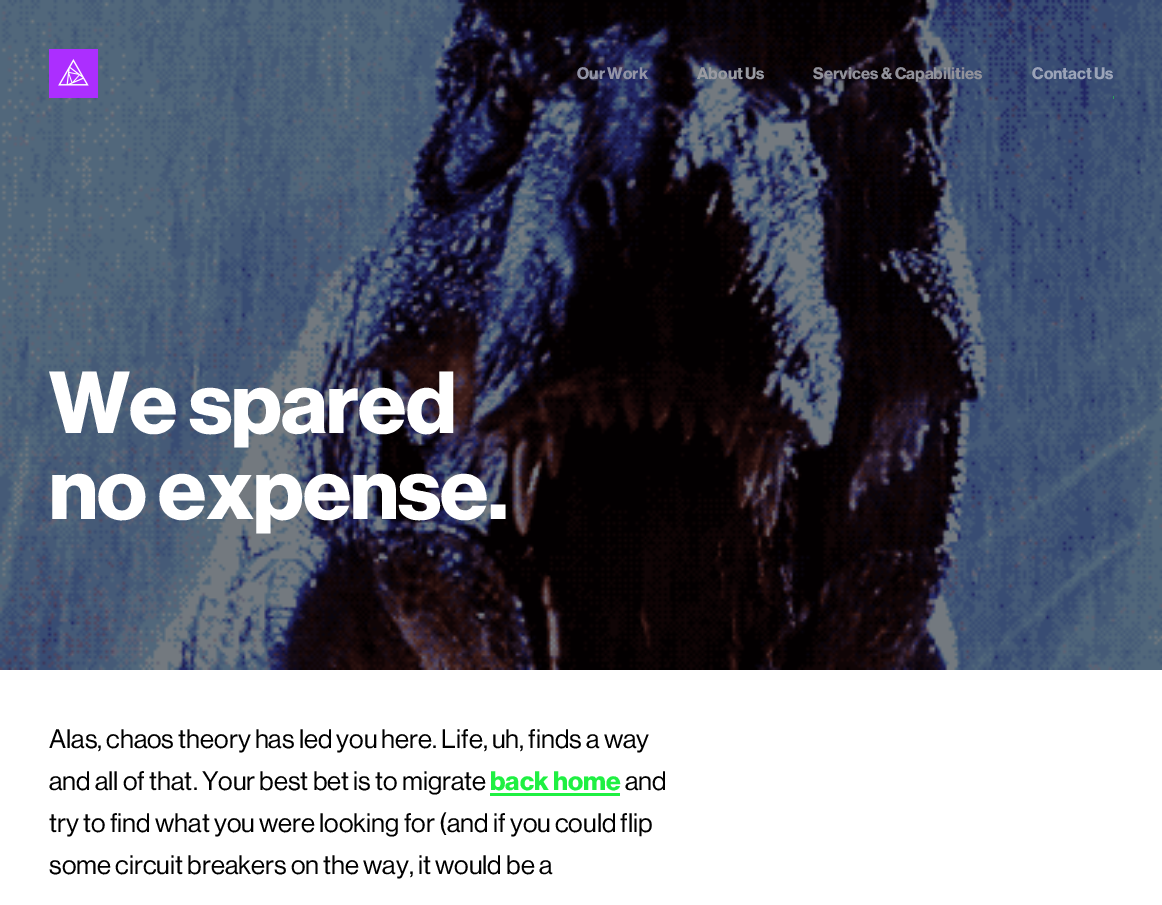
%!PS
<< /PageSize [1162 905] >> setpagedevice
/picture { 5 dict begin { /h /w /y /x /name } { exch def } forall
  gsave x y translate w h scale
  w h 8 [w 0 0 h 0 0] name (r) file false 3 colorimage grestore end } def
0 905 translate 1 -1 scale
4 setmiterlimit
1 setgray
0 0 1162 905 rectfill
0 setgray
0 0 1162 670 rectfill
(img2.rgb) 0 0 1162 670 picture
(img1.rgb) 49 49 49 49 picture
/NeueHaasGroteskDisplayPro-Bold [16.4 0 0 -16.4 0 0] selectfont
0.573 0.576 0.651 setrgbcolor
577 79 moveto (Our Work) show
0.6 0.604 0.631 setrgbcolor
697 79 moveto (About Us) show
0.569 0.569 0.604 setrgbcolor
813 79 moveto (Services & Capabilities) show
0.608 0.643 0.722 setrgbcolor
1032 79 moveto (Contact Us) show
0.173 0.62 0.353 setrgbcolor
1113 96 1 3 rectfill
/NeueHaasGroteskDisplayPro-Bold [86 0 0 -86 0 0] selectfont
1 setgray
49 433 moveto -0.9 0 (We spared) ashow
49 519 moveto -0.9 0 (no expense.) ashow
/NeueHaasGroteskDisplayPro-Regular [26.25 0 0 -26.25 0 0] selectfont
0 setgray
49 748 moveto (Alas, chaos theory has led you here. Life, uh, finds a way) show
49 790 moveto (and all of that. Your best bet is to migrate) show
/NeueHaasGroteskDisplayPro-Bold [26.25 0 0 -26.25 0 0] selectfont
0.122 0.941 0.259 setrgbcolor
490 790 moveto (back home) show
490 793 130 3 rectfill
/NeueHaasGroteskDisplayPro-Regular [26.25 0 0 -26.25 0 0] selectfont
0 setgray
625 790 moveto (and) show
49 832 moveto (try to find what you were looking for \(and if you could flip) show
49 874 moveto (some circuit breakers on the way, it would be a) show
showpage
